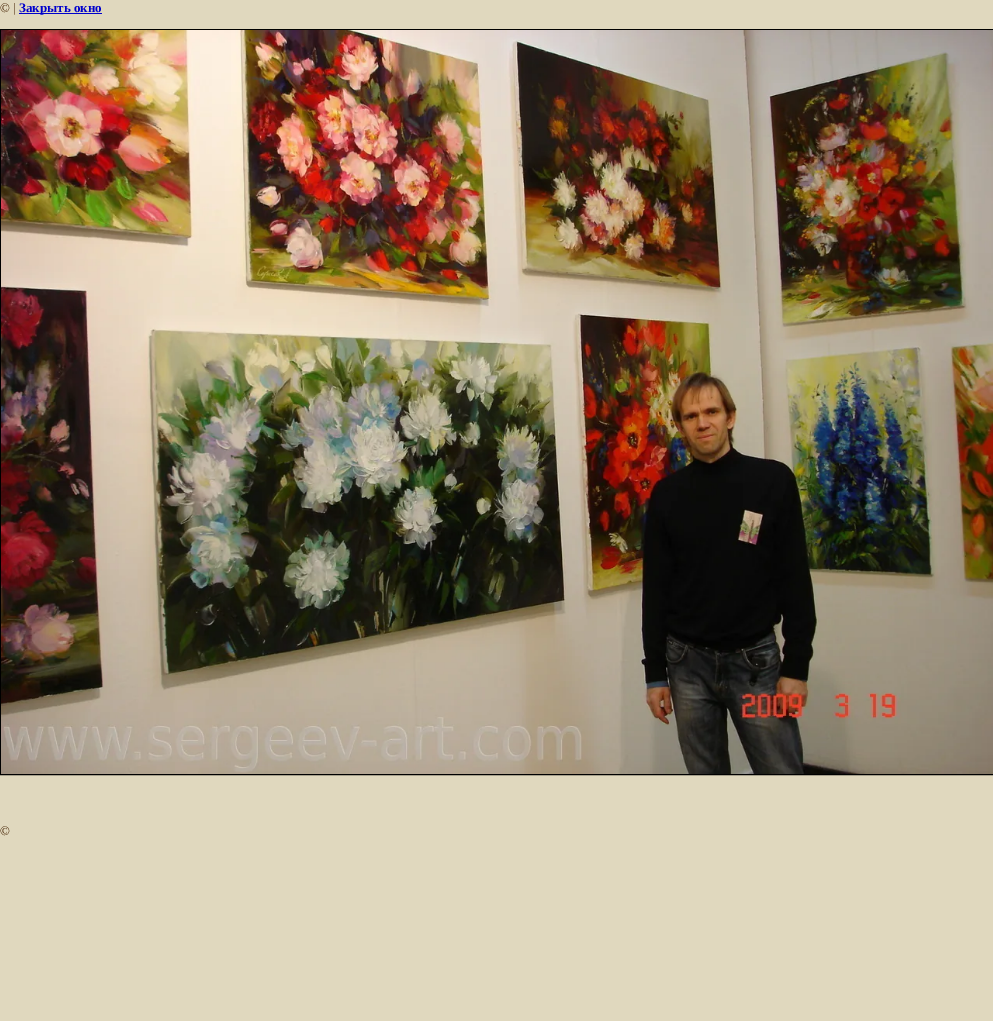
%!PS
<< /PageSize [993 1021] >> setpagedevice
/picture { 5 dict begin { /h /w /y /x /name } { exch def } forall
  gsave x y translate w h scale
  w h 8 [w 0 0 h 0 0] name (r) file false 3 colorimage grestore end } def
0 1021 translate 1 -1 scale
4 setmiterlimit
0.878 0.847 0.745 setrgbcolor
0 0 993 1021 rectfill
/LiberationSerif-Regular [13 0 0 -13 0 0] selectfont
0.29 0.157 0.035 setrgbcolor
0 12 moveto (© |) show
0 0 0.8 setrgbcolor
19 13 83 1 rectfill
/LiberationSerif-Bold [13 0 0 -13 0 0] selectfont
19 12 moveto (Закрыть окно) show
0 setgray
0.5 29.5 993 745 rectstroke
(img1.rgb) 1 30 992 744 picture
/LiberationSerif-Regular [13 0 0 -13 0 0] selectfont
0.29 0.157 0.035 setrgbcolor
0 835 moveto (©) show
showpage
